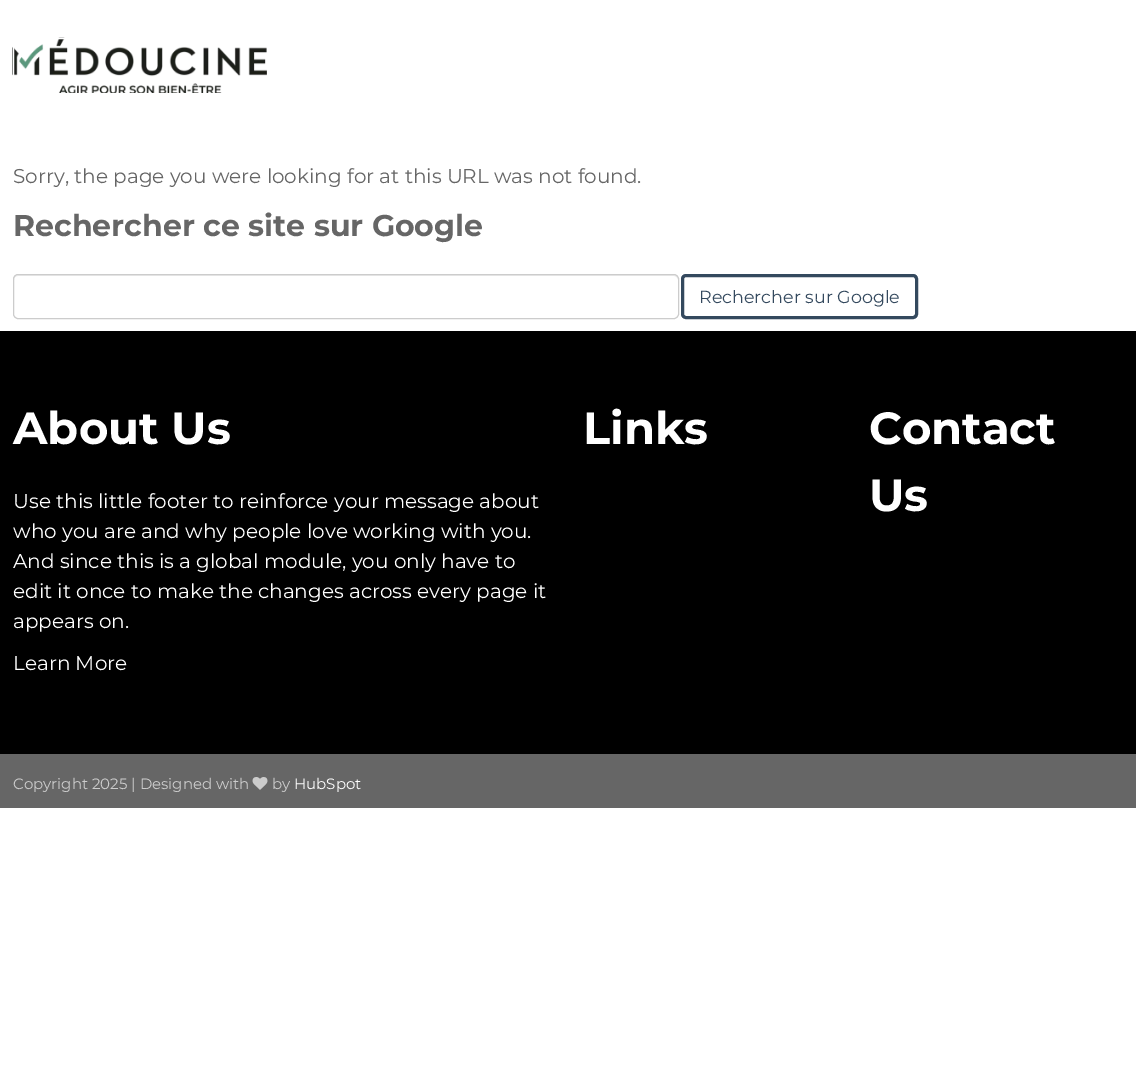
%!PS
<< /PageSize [1136 1072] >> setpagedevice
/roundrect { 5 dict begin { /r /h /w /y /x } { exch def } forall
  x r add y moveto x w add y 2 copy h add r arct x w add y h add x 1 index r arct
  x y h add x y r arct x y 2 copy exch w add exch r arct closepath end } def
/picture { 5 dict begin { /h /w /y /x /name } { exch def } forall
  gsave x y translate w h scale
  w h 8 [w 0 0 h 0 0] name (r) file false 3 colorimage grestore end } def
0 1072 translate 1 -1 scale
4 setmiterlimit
1 setgray
0 0 1136 1072 rectfill
(img1.rgb) 12 37 255 56 picture
13.5 38.5 254 55 rectstroke
/Montserrat-Regular [20 0 0 -20 0 0] selectfont
0.4 setgray
13 183 moveto (Sorry, the page you were looking for at this URL was not found.) show
/Montserrat-Bold [30 0 0 -30 0 0] selectfont
13 236 moveto (Rechercher ce site sur Google) show
0.925 setgray
newpath 18 276 moveto 674 276 lineto 676 276 678 278 678 280 curveto 678 277 677 275 674 275 curveto 18 275 lineto 15 276 lineto 14 277 lineto 14 280 lineto 14 278 15 276 18 276 curveto closepath fill
0.8 setgray
13.5 274.5 665 44 4.5 roundrect stroke
0.204 0.286 0.369 setrgbcolor
3 setlinewidth
682.5 275.5 234 42 3.5 roundrect stroke
/Montserrat-Regular [17.5 0 0 -17.5 0 0] selectfont
699 303 moveto (Rechercher sur Google) show
0 setgray
0 331 1136 423 rectfill
/Montserrat-Bold [45 0 0 -45 0 0] selectfont
1 setgray
13 444 moveto (About Us) show
/Montserrat-Regular [20 0 0 -20 0 0] selectfont
13 508 moveto (Use this little footer to reinforce your message about) show
13 538 moveto (who you are and why people love working with you.) show
13 568 moveto (And since this is a global module, you only have to) show
13 598 moveto (edit it once to make the changes across every page it) show
13 628 moveto (appears on.) show
13 670 moveto (Learn More) show
/Montserrat-Bold [45 0 0 -45 0 0] selectfont
583 444 moveto (Links) show
869 444 moveto (Contact) show
869 511 moveto (Us) show
0.4 setgray
0 754 1136 54 rectfill
/Montserrat-Regular [15 0 0 -15 0 0] selectfont
0.8 setgray
13 789 moveto (Copyright 2025 | Designed with) show
(img2.rgb) 252 777 16 13 picture
272 789 moveto (by) show
1 setgray
294 789 moveto (HubSpot) show
showpage
